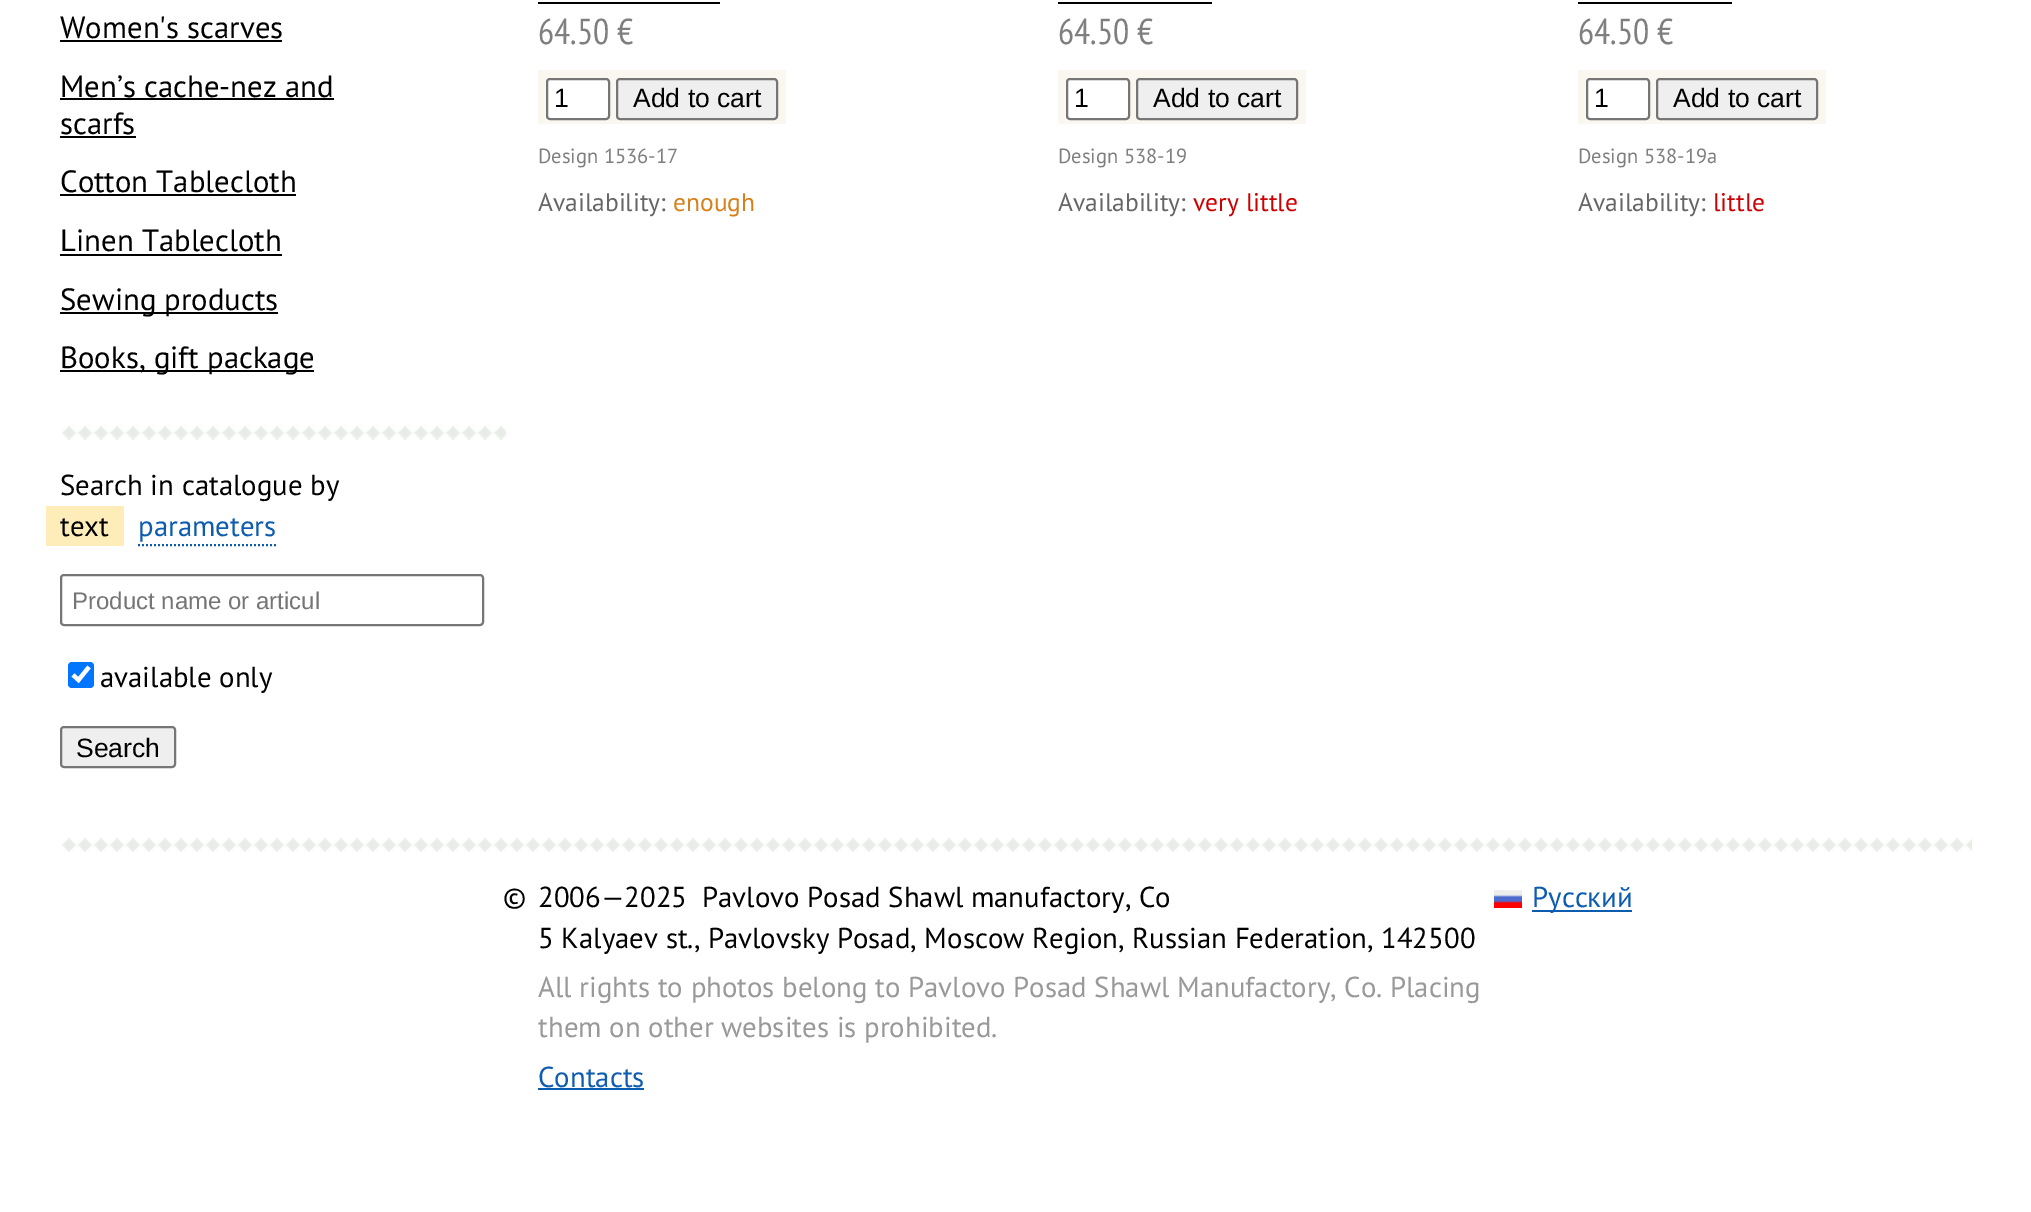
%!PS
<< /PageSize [2031 1212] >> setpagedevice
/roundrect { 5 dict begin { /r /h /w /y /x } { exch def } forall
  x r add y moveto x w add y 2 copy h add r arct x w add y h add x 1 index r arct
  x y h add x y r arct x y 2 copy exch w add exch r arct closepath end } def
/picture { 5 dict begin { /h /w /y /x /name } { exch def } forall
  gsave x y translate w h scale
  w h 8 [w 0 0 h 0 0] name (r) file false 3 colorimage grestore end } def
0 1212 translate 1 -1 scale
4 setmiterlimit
1 setgray
0 0 2031 1212 rectfill
/PTSans-Regular [30.75 0 0 -30.75 0 0] selectfont
0 setgray
60 38 moveto (Women's scarves) show
60 40 222 2 rectfill
60 97 moveto (Men’s cache-nez and) show
60 98 274 2 rectfill
60 134 moveto (scarfs) show
60 136 76 2 rectfill
60 192 moveto (Cotton Tablecloth) show
60 194 236 2 rectfill
60 251 moveto (Linen Tablecloth) show
60 254 222 2 rectfill
60 312 218 2 rectfill
60 310 moveto (Sewing products) show
60 370 254 2 rectfill
60 368 moveto (Books, gift package) show
(img1.rgb) 62 426 444 14 picture
/PTSans-Regular [28.8 0 0 -28.8 0 0] selectfont
60 495 moveto (Search in catalogue by) show
0.996 0.929 0.725 setrgbcolor
46 506 78 40 rectfill
0 setgray
60 536 moveto (text) show
0.047 0.361 0.686 setrgbcolor
138 536 moveto (parameters) show
2 setlinewidth
[2 2] 0 setdash
newpath 138 545 moveto 276 545 lineto stroke
0.463 setgray
[] 0 setdash
61 575 422 50 3 roundrect stroke
/LiberationSans-Regular [24 0 0 -24 0 0] selectfont
0.459 setgray
72 609 moveto (Product name or articul) show
0 0.459 1 setrgbcolor
68 662 26 26 4 roundrect fill
1 setgray
4.2 setlinewidth
newpath 73 675 moveto 78.5 680 lineto 89 667 lineto stroke
/PTSans-Regular [28.8 0 0 -28.8 0 0] selectfont
0 setgray
100 687 moveto (available only) show
0.937 setgray
61 727 114 40 3 roundrect gsave fill grestore
0.463 setgray
2 setlinewidth
stroke
/LiberationSans-Regular [26.5 0 0 -26.5 0 0] selectfont
0 setgray
76 757 moveto (Search) show
538 2 182 2 rectfill
/PTSansNarrow-Regular [36 0 0 -36 0 0] selectfont
0.498 setgray
538 44 moveto (64.50 €) show
0.98 0.969 0.941 setrgbcolor
538 70 248 54 rectfill
1 setgray
547 79 62 40 3 roundrect gsave fill grestore
0.463 setgray
stroke
/LiberationSans-Regular [26.5 0 0 -26.5 0 0] selectfont
0 setgray
554 107 moveto (1) show
0.937 setgray
617 79 160 40 3 roundrect gsave fill grestore
0.463 setgray
stroke
0 setgray
633 107 moveto (Add to cart) show
/PTSans-Regular [20.5 0 0 -20.5 0 0] selectfont
0.498 setgray
538 163 moveto (Design 1536-17) show
/PTSans-Regular [25.5 0 0 -25.5 0 0] selectfont
0.4 setgray
538 211 moveto (Availability:) show
0.843 0.502 0.102 setrgbcolor
673 211 moveto (enough) show
0 setgray
1058 2 154 2 rectfill
/PTSansNarrow-Regular [36 0 0 -36 0 0] selectfont
0.498 setgray
1058 44 moveto (64.50 €) show
0.98 0.969 0.941 setrgbcolor
1058 70 248 54 rectfill
1 setgray
1067 79 62 40 3 roundrect gsave fill grestore
0.463 setgray
stroke
/LiberationSans-Regular [26.5 0 0 -26.5 0 0] selectfont
0 setgray
1074 107 moveto (1) show
0.937 setgray
1137 79 160 40 3 roundrect gsave fill grestore
0.463 setgray
stroke
0 setgray
1153 107 moveto (Add to cart) show
/PTSans-Regular [20.5 0 0 -20.5 0 0] selectfont
0.498 setgray
1058 163 moveto (Design 538-19) show
/PTSans-Regular [25.5 0 0 -25.5 0 0] selectfont
0.4 setgray
1058 211 moveto (Availability:) show
0.8 0 0 setrgbcolor
1193 211 moveto (very little) show
0 setgray
1578 2 154 2 rectfill
/PTSansNarrow-Regular [36 0 0 -36 0 0] selectfont
0.498 setgray
1578 44 moveto (64.50 €) show
0.98 0.969 0.941 setrgbcolor
1578 70 248 54 rectfill
1 setgray
1587 79 62 40 3 roundrect gsave fill grestore
0.463 setgray
stroke
/LiberationSans-Regular [26.5 0 0 -26.5 0 0] selectfont
0 setgray
1594 107 moveto (1) show
0.937 setgray
1657 79 160 40 3 roundrect gsave fill grestore
0.463 setgray
stroke
0 setgray
1673 107 moveto (Add to cart) show
/PTSans-Regular [20.5 0 0 -20.5 0 0] selectfont
0.498 setgray
1578 163 moveto (Design 538-19a) show
/PTSans-Regular [25.5 0 0 -25.5 0 0] selectfont
0.4 setgray
1578 211 moveto (Availability:) show
0.8 0 0 setrgbcolor
1713 211 moveto (little) show
(img2.rgb) 62 838 1910 14 picture
/PTSans-Regular [28.8 0 0 -28.8 0 0] selectfont
0 setgray
503 907 moveto (©) show
538 907 moveto (2006—2025) show
702 907 moveto (Pavlovo Posad Shawl manufactory, Co) show
538 948 moveto (5 Kalyaev st., Pavlovsky Posad, Moscow Region, Russian Federation, 142500) show
0.6 setgray
538 997 moveto (All rights to photos belong to Pavlovo Posad Shawl Manufactory, Co. Placing) show
538 1037 moveto (them on other websites is prohibited.) show
0.047 0.361 0.686 setrgbcolor
538 1087 moveto (Contacts) show
538 1088 106 2 rectfill
(img3.rgb) 1494 890 28 18 picture
1532 910 100 2 rectfill
1532 907 moveto (Русский) show
showpage
